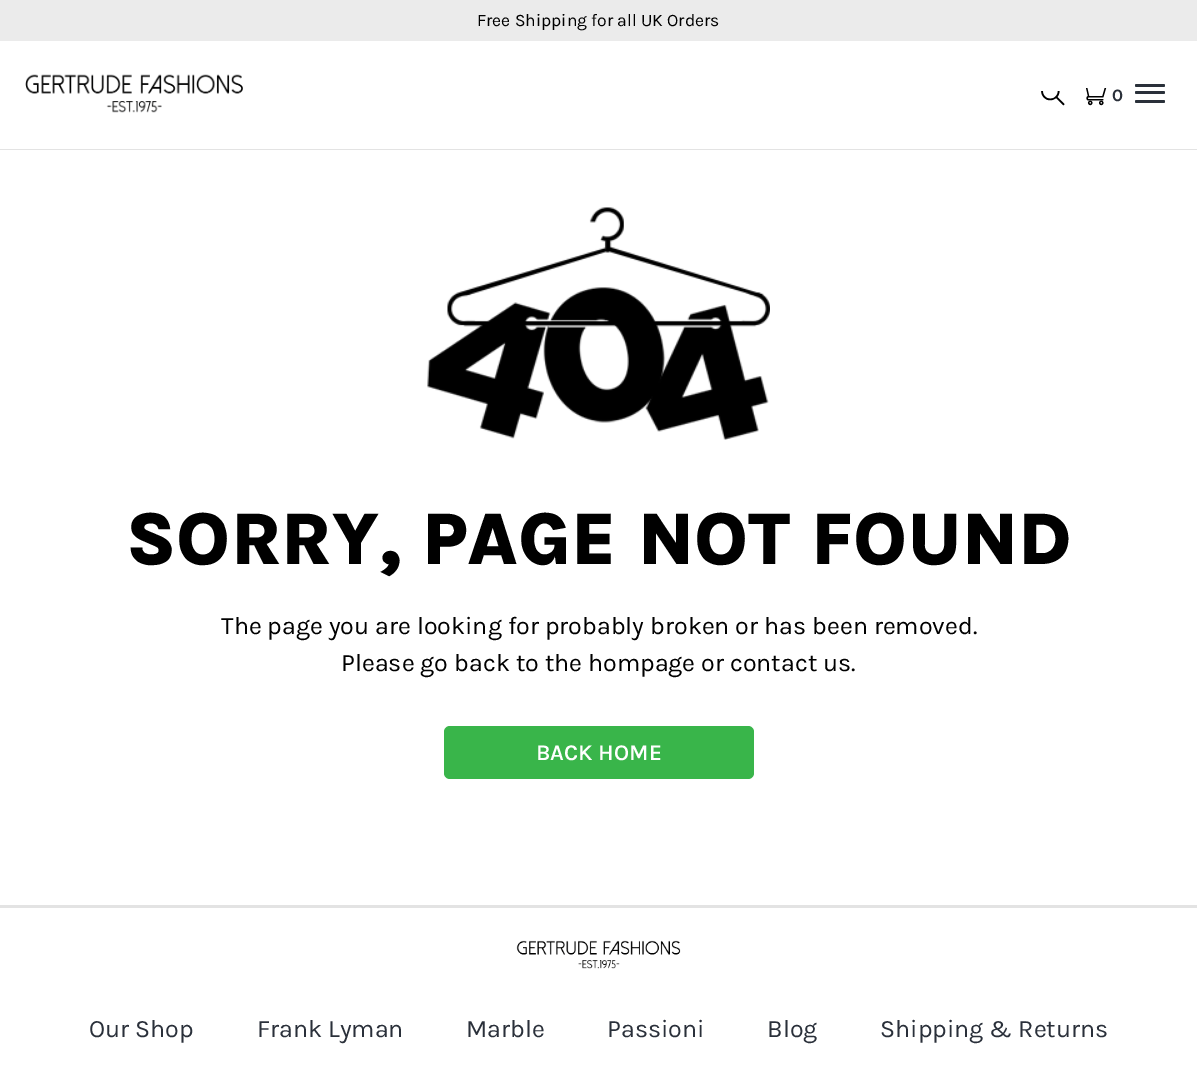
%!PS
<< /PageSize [1197 1086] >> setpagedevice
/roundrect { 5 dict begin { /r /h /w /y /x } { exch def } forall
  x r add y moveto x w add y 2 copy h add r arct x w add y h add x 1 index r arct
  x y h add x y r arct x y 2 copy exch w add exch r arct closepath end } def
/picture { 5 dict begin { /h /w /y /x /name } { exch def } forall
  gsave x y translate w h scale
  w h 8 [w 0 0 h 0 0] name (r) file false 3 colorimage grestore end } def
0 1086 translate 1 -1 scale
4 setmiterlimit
1 setgray
0 0 1197 1086 rectfill
0.89 setgray
0 149 1197 1 rectfill
0.922 setgray
0 0 1197 41 rectfill
/Karla-Regular [17.5 0 0 -17.5 0 0] selectfont
0 setgray
477 26 moveto (Free Shipping for all UK Orders) show
(img1.rgb) 25 74 218 39 picture
(img2.rgb) 1041 91 24 15 picture
(img3.rgb) 1086 88 21 18 picture
/Karla-Bold [17.5 0 0 -17.5 0 0] selectfont
0.165 0.188 0.227 setrgbcolor
1112 101 moveto (0) show
1135 84 30 3 1.5 roundrect fill
1135 91 30 3 1.5 roundrect fill
1135 100 30 3 1.5 roundrect fill
(img4.rgb) 427 207 343 233 picture
/Karla-ExtraBold [75 0 0 -75 0 0] selectfont
0 setgray
126 564 moveto (SORRY, PAGE NOT FOUND) show
/Karla-Regular [25 0 0 -25 0 0] selectfont
221 634 moveto (The page you are looking for probably broken or has been removed.) show
341 671 moveto (Please go back to the hompage or contact us.) show
0.224 0.71 0.29 setrgbcolor
444 726 310 53 6 roundrect fill
/Karla-SemiBold [22.5 0 0 -22.5 0 0] selectfont
1 setgray
536 760 moveto (BACK HOME) show
0.89 setgray
0 905 1197 3 rectfill
(img5.rgb) 516 940 165 29 picture
/Karla-Regular [25 0 0 -25 0 0] selectfont
0.165 0.188 0.227 setrgbcolor
89 1037 moveto (Our Shop) show
257 1037 moveto (Frank Lyman) show
466 1037 moveto (Marble) show
607 1037 moveto (Passioni) show
767 1037 moveto (Blog) show
880 1037 moveto (Shipping & Returns) show
showpage
